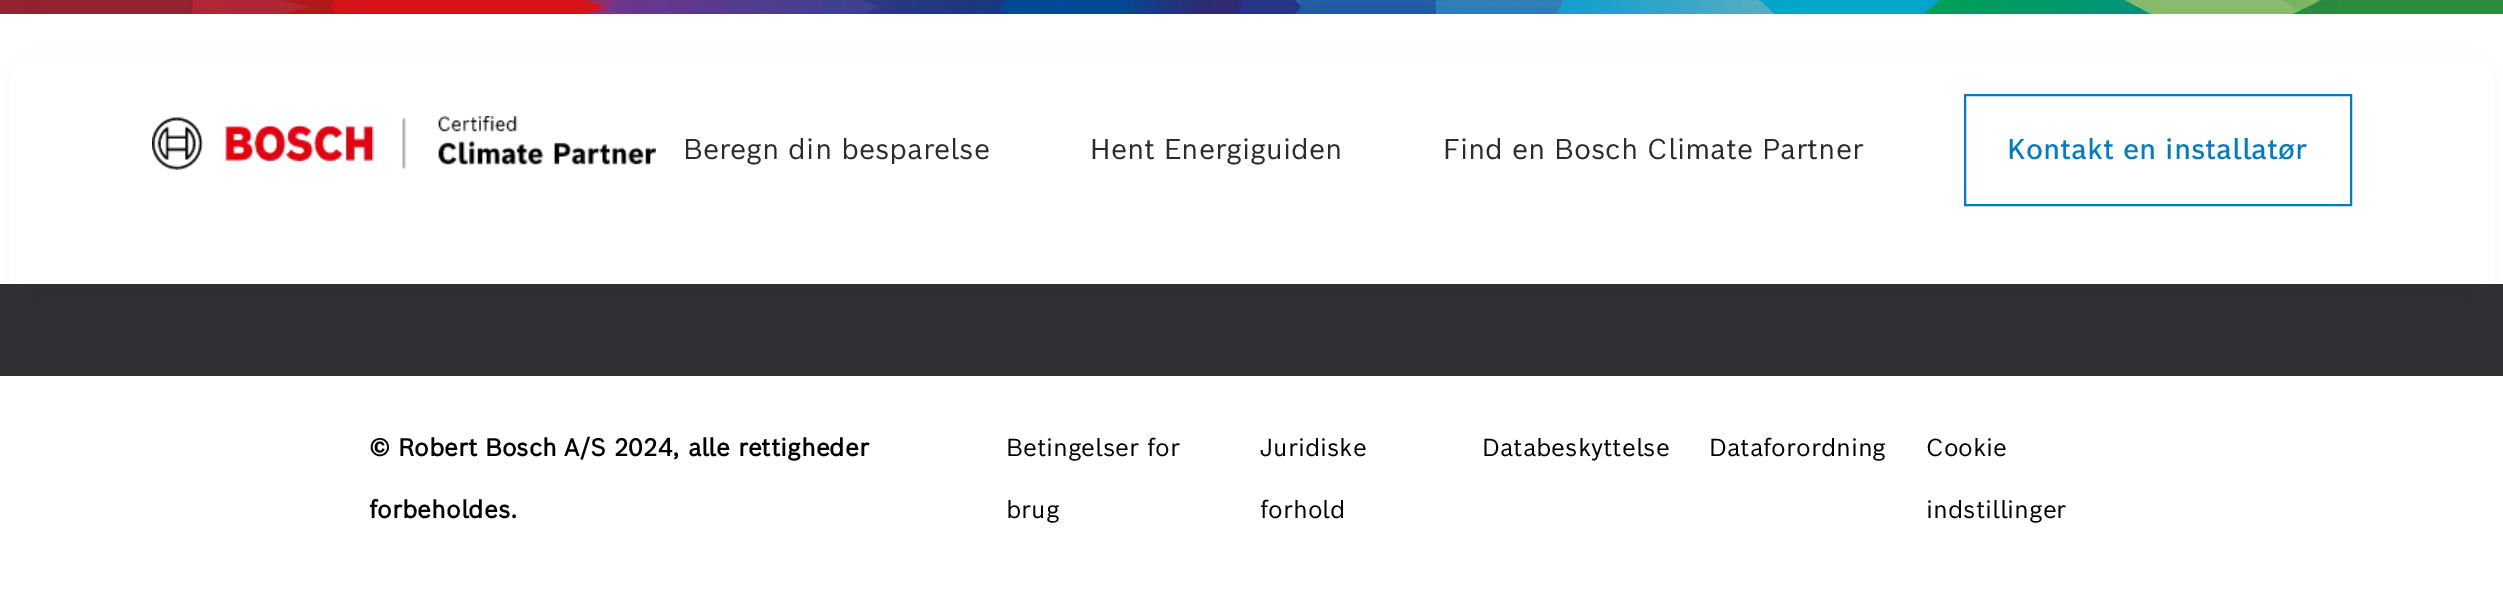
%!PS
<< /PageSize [2503 610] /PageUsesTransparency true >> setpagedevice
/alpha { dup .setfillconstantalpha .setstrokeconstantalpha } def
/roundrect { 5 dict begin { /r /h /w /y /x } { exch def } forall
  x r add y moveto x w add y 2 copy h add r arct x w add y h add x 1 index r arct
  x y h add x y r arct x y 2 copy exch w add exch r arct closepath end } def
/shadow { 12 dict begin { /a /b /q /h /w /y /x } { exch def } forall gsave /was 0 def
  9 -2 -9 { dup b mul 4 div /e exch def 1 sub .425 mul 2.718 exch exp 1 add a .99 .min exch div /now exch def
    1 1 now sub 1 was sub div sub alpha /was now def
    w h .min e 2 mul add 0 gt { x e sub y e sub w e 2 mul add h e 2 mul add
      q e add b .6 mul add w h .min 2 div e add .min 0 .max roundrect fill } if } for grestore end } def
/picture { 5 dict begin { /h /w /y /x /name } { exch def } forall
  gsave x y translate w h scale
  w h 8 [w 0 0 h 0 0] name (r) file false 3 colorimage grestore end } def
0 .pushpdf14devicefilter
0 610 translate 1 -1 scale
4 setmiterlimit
1 setgray
0 0 2503 610 rectfill
0.18 0.188 0.2 setrgbcolor
0 284 2503 92 rectfill
0 setgray
30 80 2444 224 0 20 0.06 shadow
1 setgray
11 61 2482 223 rectfill
(img1.rgb) 0 0 2503 14 picture
(img2.rgb) 152 116 504 54 picture
/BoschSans-Regular [28 0 0 -28 0 0] selectfont
0.161 0.169 0.173 setrgbcolor
683 159 moveto (Beregn din besparelse) show
1090 159 moveto (Hent Energiguiden) show
1443 159 moveto (Find en Bosch Climate Partner) show
0.008 0.482 0.753 setrgbcolor
2 setlinewidth
1965 95 386 110 rectstroke
/BoschSans-Medium [28 0 0 -28 0 0] selectfont
2007 159 moveto (Kontakt en installatør) show
/BoschSans-Bold [24 0 0 -24 0 0] selectfont
0 setgray
369 456 moveto (© Robert Bosch A/S 2024, alle rettigheder) show
369 518 moveto (forbeholdes.) show
/BoschSans-Regular [24 0 0 -24 0 0] selectfont
1006 456 moveto (Betingelser for) show
1006 518 moveto (brug) show
1260 456 moveto (Juridiske) show
1260 518 moveto (forhold) show
1482 456 moveto (Databeskyttelse) show
1709 456 moveto (Dataforordning) show
1926 456 moveto (Cookie) show
1926 518 moveto (indstillinger) show
.poppdf14devicefilter showpage
